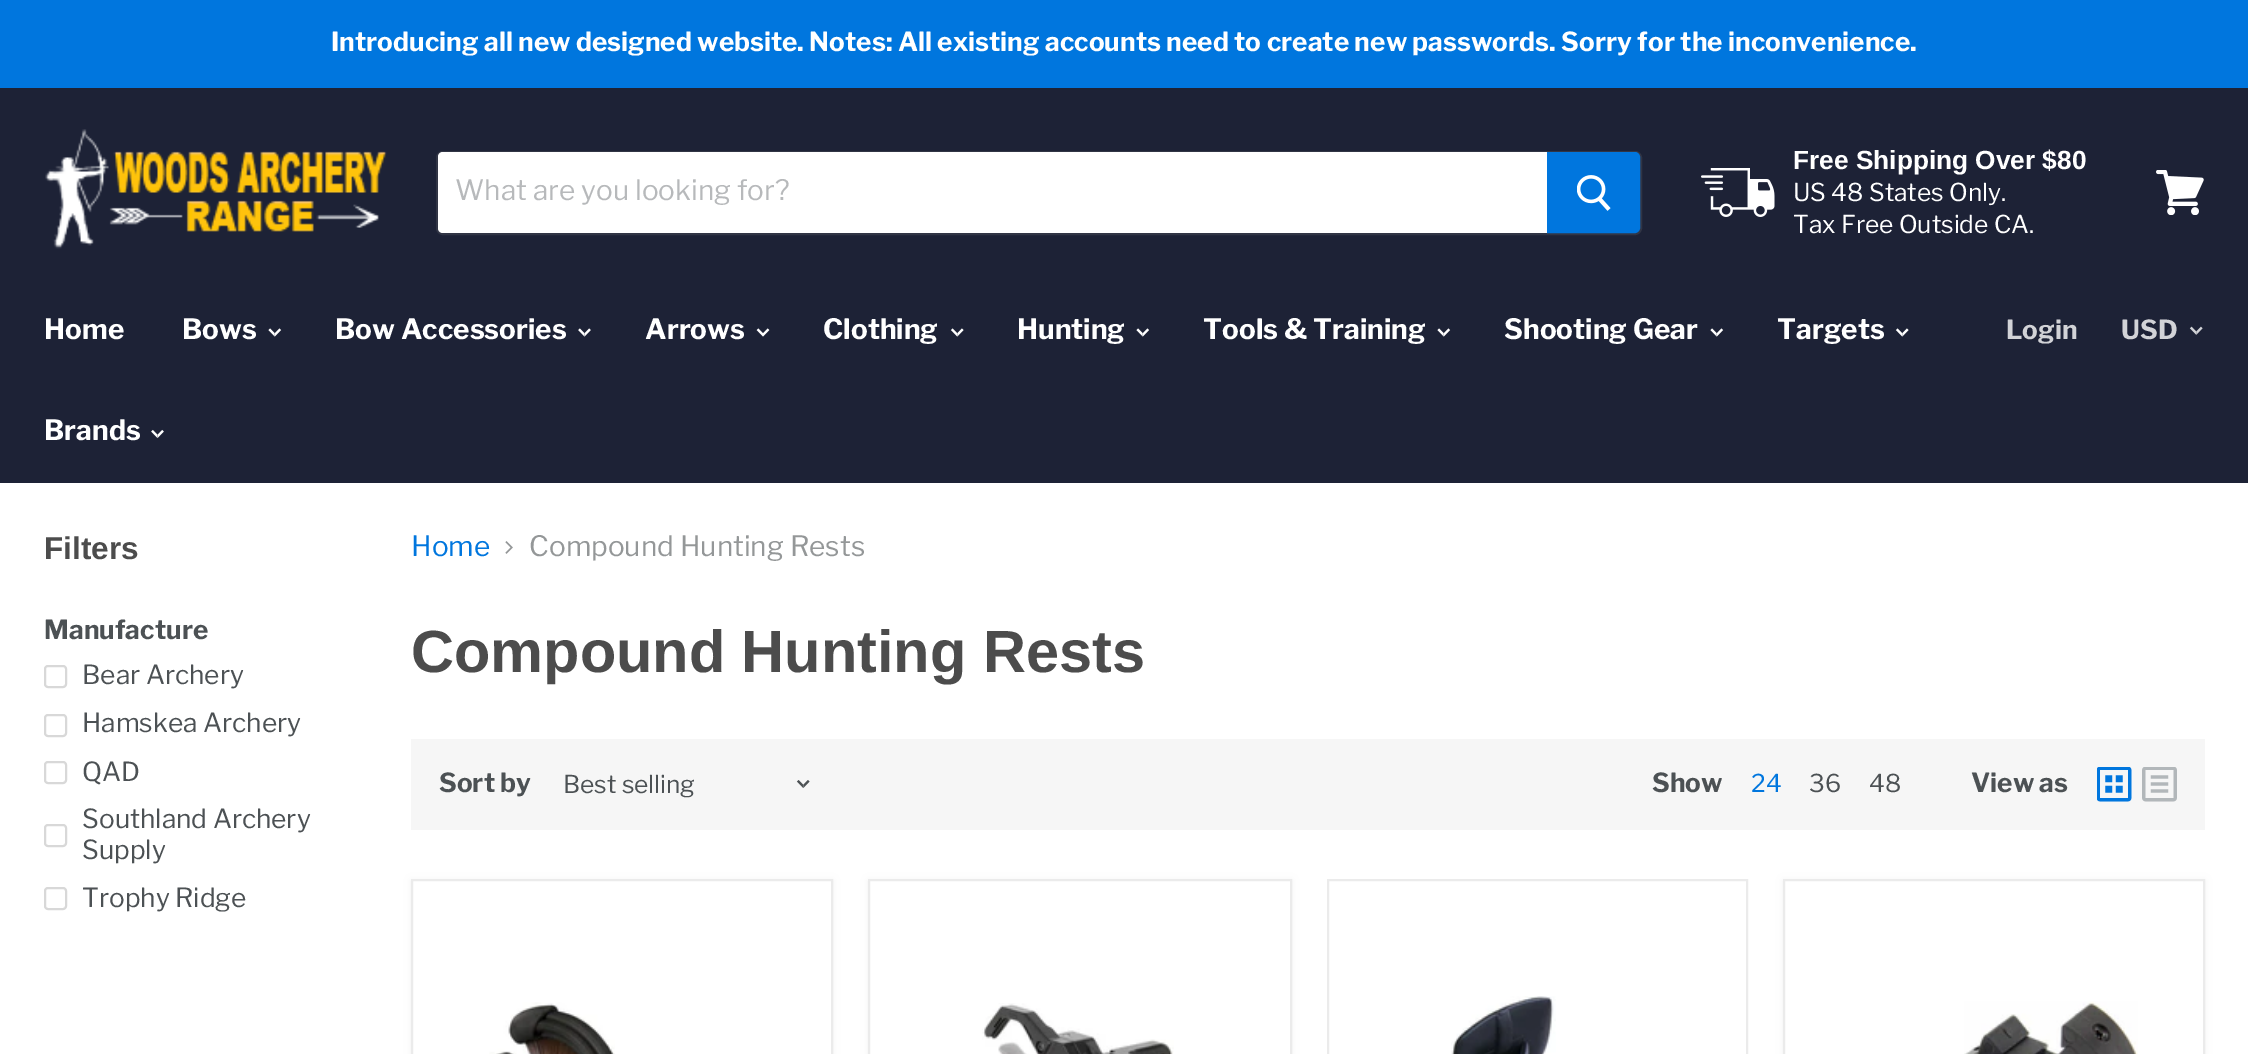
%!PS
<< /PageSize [2248 1054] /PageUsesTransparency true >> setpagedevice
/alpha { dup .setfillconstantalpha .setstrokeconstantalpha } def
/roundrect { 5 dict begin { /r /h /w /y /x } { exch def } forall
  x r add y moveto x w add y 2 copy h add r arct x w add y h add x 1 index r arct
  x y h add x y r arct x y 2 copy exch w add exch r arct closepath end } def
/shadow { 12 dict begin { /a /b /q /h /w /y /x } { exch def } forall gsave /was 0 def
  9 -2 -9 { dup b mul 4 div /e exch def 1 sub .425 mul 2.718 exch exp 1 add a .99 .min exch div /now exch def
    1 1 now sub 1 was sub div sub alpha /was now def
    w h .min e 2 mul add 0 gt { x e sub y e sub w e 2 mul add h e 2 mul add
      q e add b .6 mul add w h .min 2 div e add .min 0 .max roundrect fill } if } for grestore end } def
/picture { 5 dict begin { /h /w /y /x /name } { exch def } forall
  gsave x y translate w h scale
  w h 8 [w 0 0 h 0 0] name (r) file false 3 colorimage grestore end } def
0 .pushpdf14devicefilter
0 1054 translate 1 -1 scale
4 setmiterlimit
1 setgray
0 0 2248 1054 rectfill
0 0.463 0.871 setrgbcolor
0 0 2248 88 rectfill
/LibreFranklin-Bold [26.25 0 0 -26.25 0 0] selectfont
1 setgray
331 51 moveto (Introducing all new designed website. Notes: All existing accounts need to create new passwords. Sorry for the inconvenience.) show
0.114 0.133 0.212 setrgbcolor
0 88 2248 395 rectfill
(img1.rgb) 45 129 342 120 picture
0.2 alpha
0.498 setgray
2 setlinewidth
437 152 1204 82 6 roundrect stroke
1 alpha
1 setgray
newpath 443 152 moveto 1547 152 lineto 1547 233 lineto 443 233 lineto 440 233 438 231 438 228 curveto 438 157 lineto 438 154 440 152 443 152 curveto closepath fill
/LibreFranklin-Regular [28 0 0 -28 0 0] selectfont
0.718 0.725 0.733 setrgbcolor
455 200 moveto (What are you looking for?) show
0 0.463 0.871 setrgbcolor
newpath 1548 153 moveto 1635 153 lineto 1637 153 1639 155 1639 157 curveto 1639 228 lineto 1639 230 1637 232 1635 232 curveto 1548 232 lineto closepath gsave fill grestore
stroke
(img2.rgb) 1577 175 34 36 picture
(img3.rgb) 1701 168 74 49 picture
/Arimo-Bold [26.25 0 0 -26.25 0 0] selectfont
1 setgray
1793 169 moveto (Free Shipping Over $80) show
/LibreFranklin-Regular [24.5 0 0 -24.5 0 0] selectfont
1793 201 moveto (US 48 States Only.) show
1793 233 moveto (Tax Free Outside CA.) show
(img4.rgb) 2156 170 48 45 picture
/LibreFranklin-Bold [28 0 0 -28 0 0] selectfont
44 339 moveto (Home) show
182 339 moveto (Bows) show
(img5.rgb) 268 328 14 9 picture
335 339 moveto (Bow Accessories) show
(img6.rgb) 578 328 13 9 picture
645 339 moveto (Arrows) show
(img7.rgb) 756 328 14 9 picture
823 339 moveto (Clothing) show
(img8.rgb) 950 328 14 9 picture
1017 339 moveto (Hunting) show
(img5.rgb) 1136 328 14 9 picture
1203 339 moveto (Tools & Training) show
(img5.rgb) 1437 328 14 9 picture
1504 339 moveto (Shooting Gear) show
(img5.rgb) 1710 328 14 9 picture
1777 339 moveto (Targets) show
(img8.rgb) 1895 328 14 9 picture
44 440 moveto (Brands) show
(img9.rgb) 151 429 13 10 picture
/LibreFranklin-Bold [26.25 0 0 -26.25 0 0] selectfont
0.824 0.827 0.843 setrgbcolor
2006 339 moveto (Login) show
2121 339 moveto (USD) show
(img10.rgb) 2189 326 14 9 picture
/Arimo-Bold [31.5 0 0 -31.5 0 0] selectfont
0.298 setgray
44 559 moveto (Filters) show
/LibreFranklin-Bold [26.25 0 0 -26.25 0 0] selectfont
0.298 0.318 0.329 setrgbcolor
44 639 moveto (Manufacture) show
0.847 setgray
45 666 21 21 3 roundrect stroke
/LibreFranklin-Regular [26.25 0 0 -26.25 0 0] selectfont
0.298 0.318 0.329 setrgbcolor
82 684 moveto (Bear Archery) show
0.847 setgray
45 715 21 21 3 roundrect stroke
0.298 0.318 0.329 setrgbcolor
82 732 moveto (Hamskea Archery) show
0.847 setgray
45 762 21 21 3 roundrect stroke
0.298 0.318 0.329 setrgbcolor
82 781 moveto (QAD) show
0.847 setgray
45 825 21 21 3 roundrect stroke
0.298 0.318 0.329 setrgbcolor
82 828 moveto (Southland Archery) show
82 859 moveto (Supply) show
0.847 setgray
45 888 21 21 3 roundrect stroke
0.298 0.318 0.329 setrgbcolor
82 907 moveto (Trophy Ridge) show
/LibreFranklin-Regular [28 0 0 -28 0 0] selectfont
0 0.463 0.871 setrgbcolor
411 556 moveto (Home) show
(img11.rgb) 505 541 8 13 picture
0.58 0.592 0.596 setrgbcolor
529 556 moveto (Compound Hunting Rests) show
/Arimo-Bold [59.5 0 0 -59.5 0 0] selectfont
0.298 setgray
411 672 moveto (Compound Hunting Rests) show
0.965 setgray
411 739 1794 91 rectfill
/LibreFranklin-Bold [26.25 0 0 -26.25 0 0] selectfont
0.298 0.318 0.329 setrgbcolor
439 792 moveto (Sort by) show
/LibreFranklin-Regular [24.5 0 0 -24.5 0 0] selectfont
563 793 moveto (Best selling) show
(img12.rgb) 796 780 14 8 picture
/LibreFranklin-Bold [26.25 0 0 -26.25 0 0] selectfont
1652 792 moveto (Show) show
/LibreFranklin-Regular [24.5 0 0 -24.5 0 0] selectfont
0 0.463 0.871 setrgbcolor
1751 792 moveto (24) show
0.298 0.318 0.329 setrgbcolor
1809 792 moveto (36) show
1869 792 moveto (48) show
/LibreFranklin-Bold [26.25 0 0 -26.25 0 0] selectfont
1971 792 moveto (View as) show
(img13.rgb) 2097 767 35 35 picture
(img14.rgb) 2142 767 35 35 picture
0.498 setgray
411 880 422 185 0 3.5 0.11 shadow
1 setgray
newpath 412 880 moveto 832 880 lineto 832 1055 lineto 412 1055 lineto closepath gsave fill grestore
0.922 setgray
stroke
(img15.rgb) 489 1002 126 52 picture
0.498 setgray
868 880 424 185 0 3.5 0.11 shadow
1 setgray
newpath 869 880 moveto 1291 880 lineto 1291 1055 lineto 869 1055 lineto closepath gsave fill grestore
0.922 setgray
stroke
(img16.rgb) 982 1003 192 51 picture
1328 880 419 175 rectstroke
(img17.rgb) 1451 996 105 58 picture
0.498 setgray
1783 880 422 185 0 3.5 0.11 shadow
1 setgray
newpath 1784 880 moveto 2204 880 lineto 2204 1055 lineto 1784 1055 lineto closepath gsave fill grestore
0.922 setgray
stroke
(img18.rgb) 1964 1001 174 53 picture
.poppdf14devicefilter showpage
